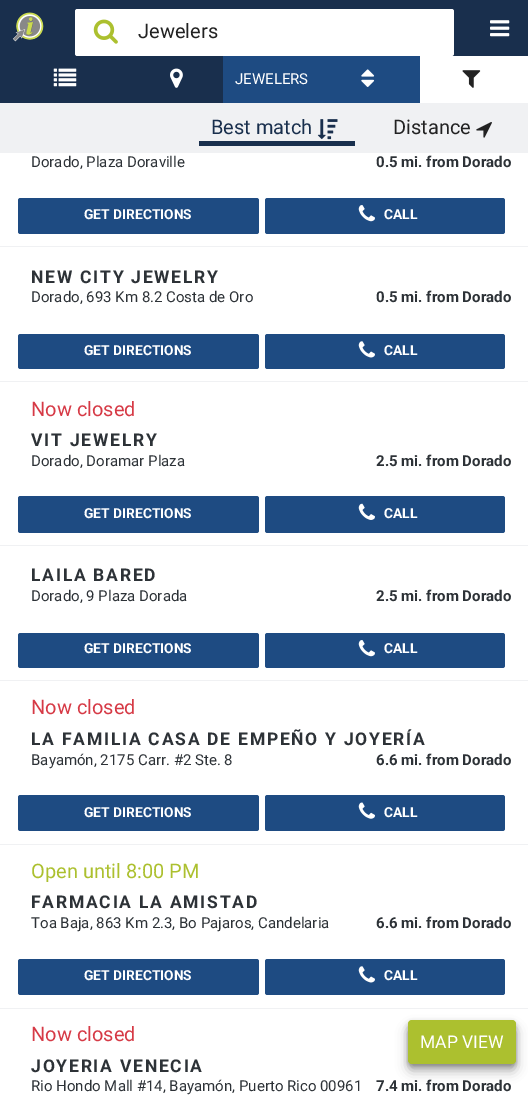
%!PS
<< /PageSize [528 1119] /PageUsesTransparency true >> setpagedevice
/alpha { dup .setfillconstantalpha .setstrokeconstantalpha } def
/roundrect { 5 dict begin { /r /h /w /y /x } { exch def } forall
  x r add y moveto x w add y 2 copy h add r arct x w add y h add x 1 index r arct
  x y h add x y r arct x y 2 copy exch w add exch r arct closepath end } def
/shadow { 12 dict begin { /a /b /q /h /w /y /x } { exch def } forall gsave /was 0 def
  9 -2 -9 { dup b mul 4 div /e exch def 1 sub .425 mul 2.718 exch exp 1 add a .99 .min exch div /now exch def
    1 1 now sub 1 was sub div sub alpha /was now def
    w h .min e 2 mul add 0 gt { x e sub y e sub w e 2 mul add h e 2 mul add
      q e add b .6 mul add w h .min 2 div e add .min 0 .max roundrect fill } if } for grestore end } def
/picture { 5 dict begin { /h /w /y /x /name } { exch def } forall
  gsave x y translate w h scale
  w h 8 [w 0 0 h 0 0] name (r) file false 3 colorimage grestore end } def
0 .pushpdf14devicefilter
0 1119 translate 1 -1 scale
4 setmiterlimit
1 setgray
0 0 528 1119 rectfill
0.098 0.184 0.302 setrgbcolor
0 0 528 56 rectfill
(img1.rgb) 13 12 31 30 picture
1 setgray
75 9 379 47 2.5 roundrect fill
(img2.rgb) 93 19 25 25 picture
/Roboto-Regular [20 0 0 -20 0 0] selectfont
0.133 setgray
138 38 moveto (Jewelers) show
(img3.rgb) 490 20 20 17 picture
0.098 0.184 0.302 setrgbcolor
0 56 223 47 rectfill
(img4.rgb) 53 68 24 19 picture
(img5.rgb) 170 68 13 20 picture
0.118 0.294 0.51 setrgbcolor
223 56 197 47 rectfill
/Roboto-Regular [15 0 0 -15 0 0] selectfont
1 setgray
235 84 moveto (JEWELERS) show
(img6.rgb) 361 69 14 18 picture
(img7.rgb) 462 70 19 18 picture
0.941 0.945 0.953 setrgbcolor
0 103 528 50 rectfill
/Roboto-Regular [20 0 0 -20 0 0] selectfont
0.098 0.184 0.302 setrgbcolor
211 134 moveto (Best match) show
(img8.rgb) 317 119 21 21 picture
199 141 156 5 rectfill
0.133 setgray
393 134 moveto (Distance) show
(img9.rgb) 476 122 16 16 picture
0.941 0.945 0.953 setrgbcolor
0 246 528 1 rectfill
/Roboto-Regular [15 0 0 -15 0 0] selectfont
0.176 0.196 0.216 setrgbcolor
31 167 moveto (Dorado, Plaza Doraville) show
/Roboto-Bold [15 0 0 -15 0 0] selectfont
376 167 moveto (0.5 mi. from Dorado) show
0.118 0.294 0.51 setrgbcolor
18 198 241 36 2.5 roundrect fill
/Roboto-Bold [13.75 0 0 -13.75 0 0] selectfont
1 setgray
84 219 moveto (GET DIRECTIONS) show
0.118 0.294 0.51 setrgbcolor
265 198 240 36 2.5 roundrect fill
(img10.rgb) 358 205 17 17 picture
1 setgray
384 219 moveto (CALL) show
0.941 0.945 0.953 setrgbcolor
0 381 528 1 rectfill
/Roboto-Bold [17.5 0 0 -17.5 0 0] selectfont
0.176 0.196 0.216 setrgbcolor
31 283 moveto 1.75 0 (NEW CITY JEWELRY) ashow
/Roboto-Regular [15 0 0 -15 0 0] selectfont
31 302 moveto (Dorado, 693 Km 8.2 Costa de Oro) show
/Roboto-Bold [15 0 0 -15 0 0] selectfont
376 302 moveto (0.5 mi. from Dorado) show
0.118 0.294 0.51 setrgbcolor
18 334 241 35 2.5 roundrect fill
/Roboto-Bold [13.75 0 0 -13.75 0 0] selectfont
1 setgray
84 355 moveto (GET DIRECTIONS) show
0.118 0.294 0.51 setrgbcolor
265 334 240 35 2.5 roundrect fill
(img11.rgb) 358 341 17 17 picture
1 setgray
384 355 moveto (CALL) show
0.941 0.945 0.953 setrgbcolor
0 545 528 1 rectfill
/Roboto-Regular [20 0 0 -20 0 0] selectfont
0.839 0.227 0.275 setrgbcolor
31 416 moveto (Now closed) show
/Roboto-Bold [17.5 0 0 -17.5 0 0] selectfont
0.176 0.196 0.216 setrgbcolor
31 446 moveto 1.75 0 (VIT JEWELRY) ashow
/Roboto-Regular [15 0 0 -15 0 0] selectfont
31 466 moveto (Dorado, Doramar Plaza) show
/Roboto-Bold [15 0 0 -15 0 0] selectfont
376 466 moveto (2.5 mi. from Dorado) show
0.118 0.294 0.51 setrgbcolor
18 496 241 37 2.5 roundrect fill
/Roboto-Bold [13.75 0 0 -13.75 0 0] selectfont
1 setgray
84 518 moveto (GET DIRECTIONS) show
0.118 0.294 0.51 setrgbcolor
265 496 240 37 2.5 roundrect fill
(img12.rgb) 358 503 17 17 picture
1 setgray
384 518 moveto (CALL) show
0.941 0.945 0.953 setrgbcolor
0 680 528 1 rectfill
/Roboto-Bold [17.5 0 0 -17.5 0 0] selectfont
0.176 0.196 0.216 setrgbcolor
31 581 moveto 1.75 0 (LAILA BARED) ashow
/Roboto-Regular [15 0 0 -15 0 0] selectfont
31 601 moveto (Dorado, 9 Plaza Dorada) show
/Roboto-Bold [15 0 0 -15 0 0] selectfont
376 601 moveto (2.5 mi. from Dorado) show
0.118 0.294 0.51 setrgbcolor
18 633 241 35 2.5 roundrect fill
/Roboto-Bold [13.75 0 0 -13.75 0 0] selectfont
1 setgray
84 653 moveto (GET DIRECTIONS) show
0.118 0.294 0.51 setrgbcolor
265 633 240 35 2.5 roundrect fill
(img10.rgb) 358 640 17 17 picture
1 setgray
384 653 moveto (CALL) show
0.941 0.945 0.953 setrgbcolor
0 844 528 1 rectfill
/Roboto-Regular [20 0 0 -20 0 0] selectfont
0.839 0.227 0.275 setrgbcolor
31 714 moveto (Now closed) show
/Roboto-Bold [17.5 0 0 -17.5 0 0] selectfont
0.176 0.196 0.216 setrgbcolor
31 745 moveto 1.75 0 (LA FAMILIA CASA DE EMPEÑO Y JOYERÍA) ashow
/Roboto-Regular [15 0 0 -15 0 0] selectfont
31 765 moveto (Bayamón, 2175 Carr. #2 Ste. 8) show
/Roboto-Bold [15 0 0 -15 0 0] selectfont
376 765 moveto (6.6 mi. from Dorado) show
0.118 0.294 0.51 setrgbcolor
18 795 241 36 2.5 roundrect fill
/Roboto-Bold [13.75 0 0 -13.75 0 0] selectfont
1 setgray
84 817 moveto (GET DIRECTIONS) show
0.118 0.294 0.51 setrgbcolor
265 795 240 36 2.5 roundrect fill
(img13.rgb) 358 802 17 17 picture
1 setgray
384 817 moveto (CALL) show
0.941 0.945 0.953 setrgbcolor
0 1008 528 1 rectfill
/Roboto-Regular [20 0 0 -20 0 0] selectfont
0.675 0.753 0.184 setrgbcolor
31 878 moveto (Open until 8:00 PM) show
/Roboto-Bold [17.5 0 0 -17.5 0 0] selectfont
0.176 0.196 0.216 setrgbcolor
31 908 moveto 1.75 0 (FARMACIA LA AMISTAD) ashow
/Roboto-Regular [15 0 0 -15 0 0] selectfont
31 928 moveto (Toa Baja, 863 Km 2.3, Bo Pajaros, Candelaria) show
/Roboto-Bold [15 0 0 -15 0 0] selectfont
376 928 moveto (6.6 mi. from Dorado) show
0.118 0.294 0.51 setrgbcolor
18 959 241 36 2.5 roundrect fill
/Roboto-Bold [13.75 0 0 -13.75 0 0] selectfont
1 setgray
84 980 moveto (GET DIRECTIONS) show
0.118 0.294 0.51 setrgbcolor
265 959 240 36 2.5 roundrect fill
(img11.rgb) 358 966 17 17 picture
1 setgray
384 980 moveto (CALL) show
/Roboto-Regular [20 0 0 -20 0 0] selectfont
0.839 0.227 0.275 setrgbcolor
31 1041 moveto (Now closed) show
/Roboto-Bold [17.5 0 0 -17.5 0 0] selectfont
0.176 0.196 0.216 setrgbcolor
31 1072 moveto 1.75 0 (JOYERIA VENECIA) ashow
/Roboto-Regular [15 0 0 -15 0 0] selectfont
31 1091 moveto (Rio Hondo Mall #14, Bayamón, Puerto Rico 00961) show
/Roboto-Bold [15 0 0 -15 0 0] selectfont
376 1091 moveto (7.4 mi. from Dorado) show
0 setgray
408 1028 108 43 4 6 0.3 shadow
408 1023 108 43 4 2.5 0.3 shadow
0.675 0.753 0.184 setrgbcolor
408 1020 108 44 4 roundrect fill
/Roboto-Regular [17.5 0 0 -17.5 0 0] selectfont
1 setgray
420 1048 moveto (MAP VIEW) show
.poppdf14devicefilter showpage
